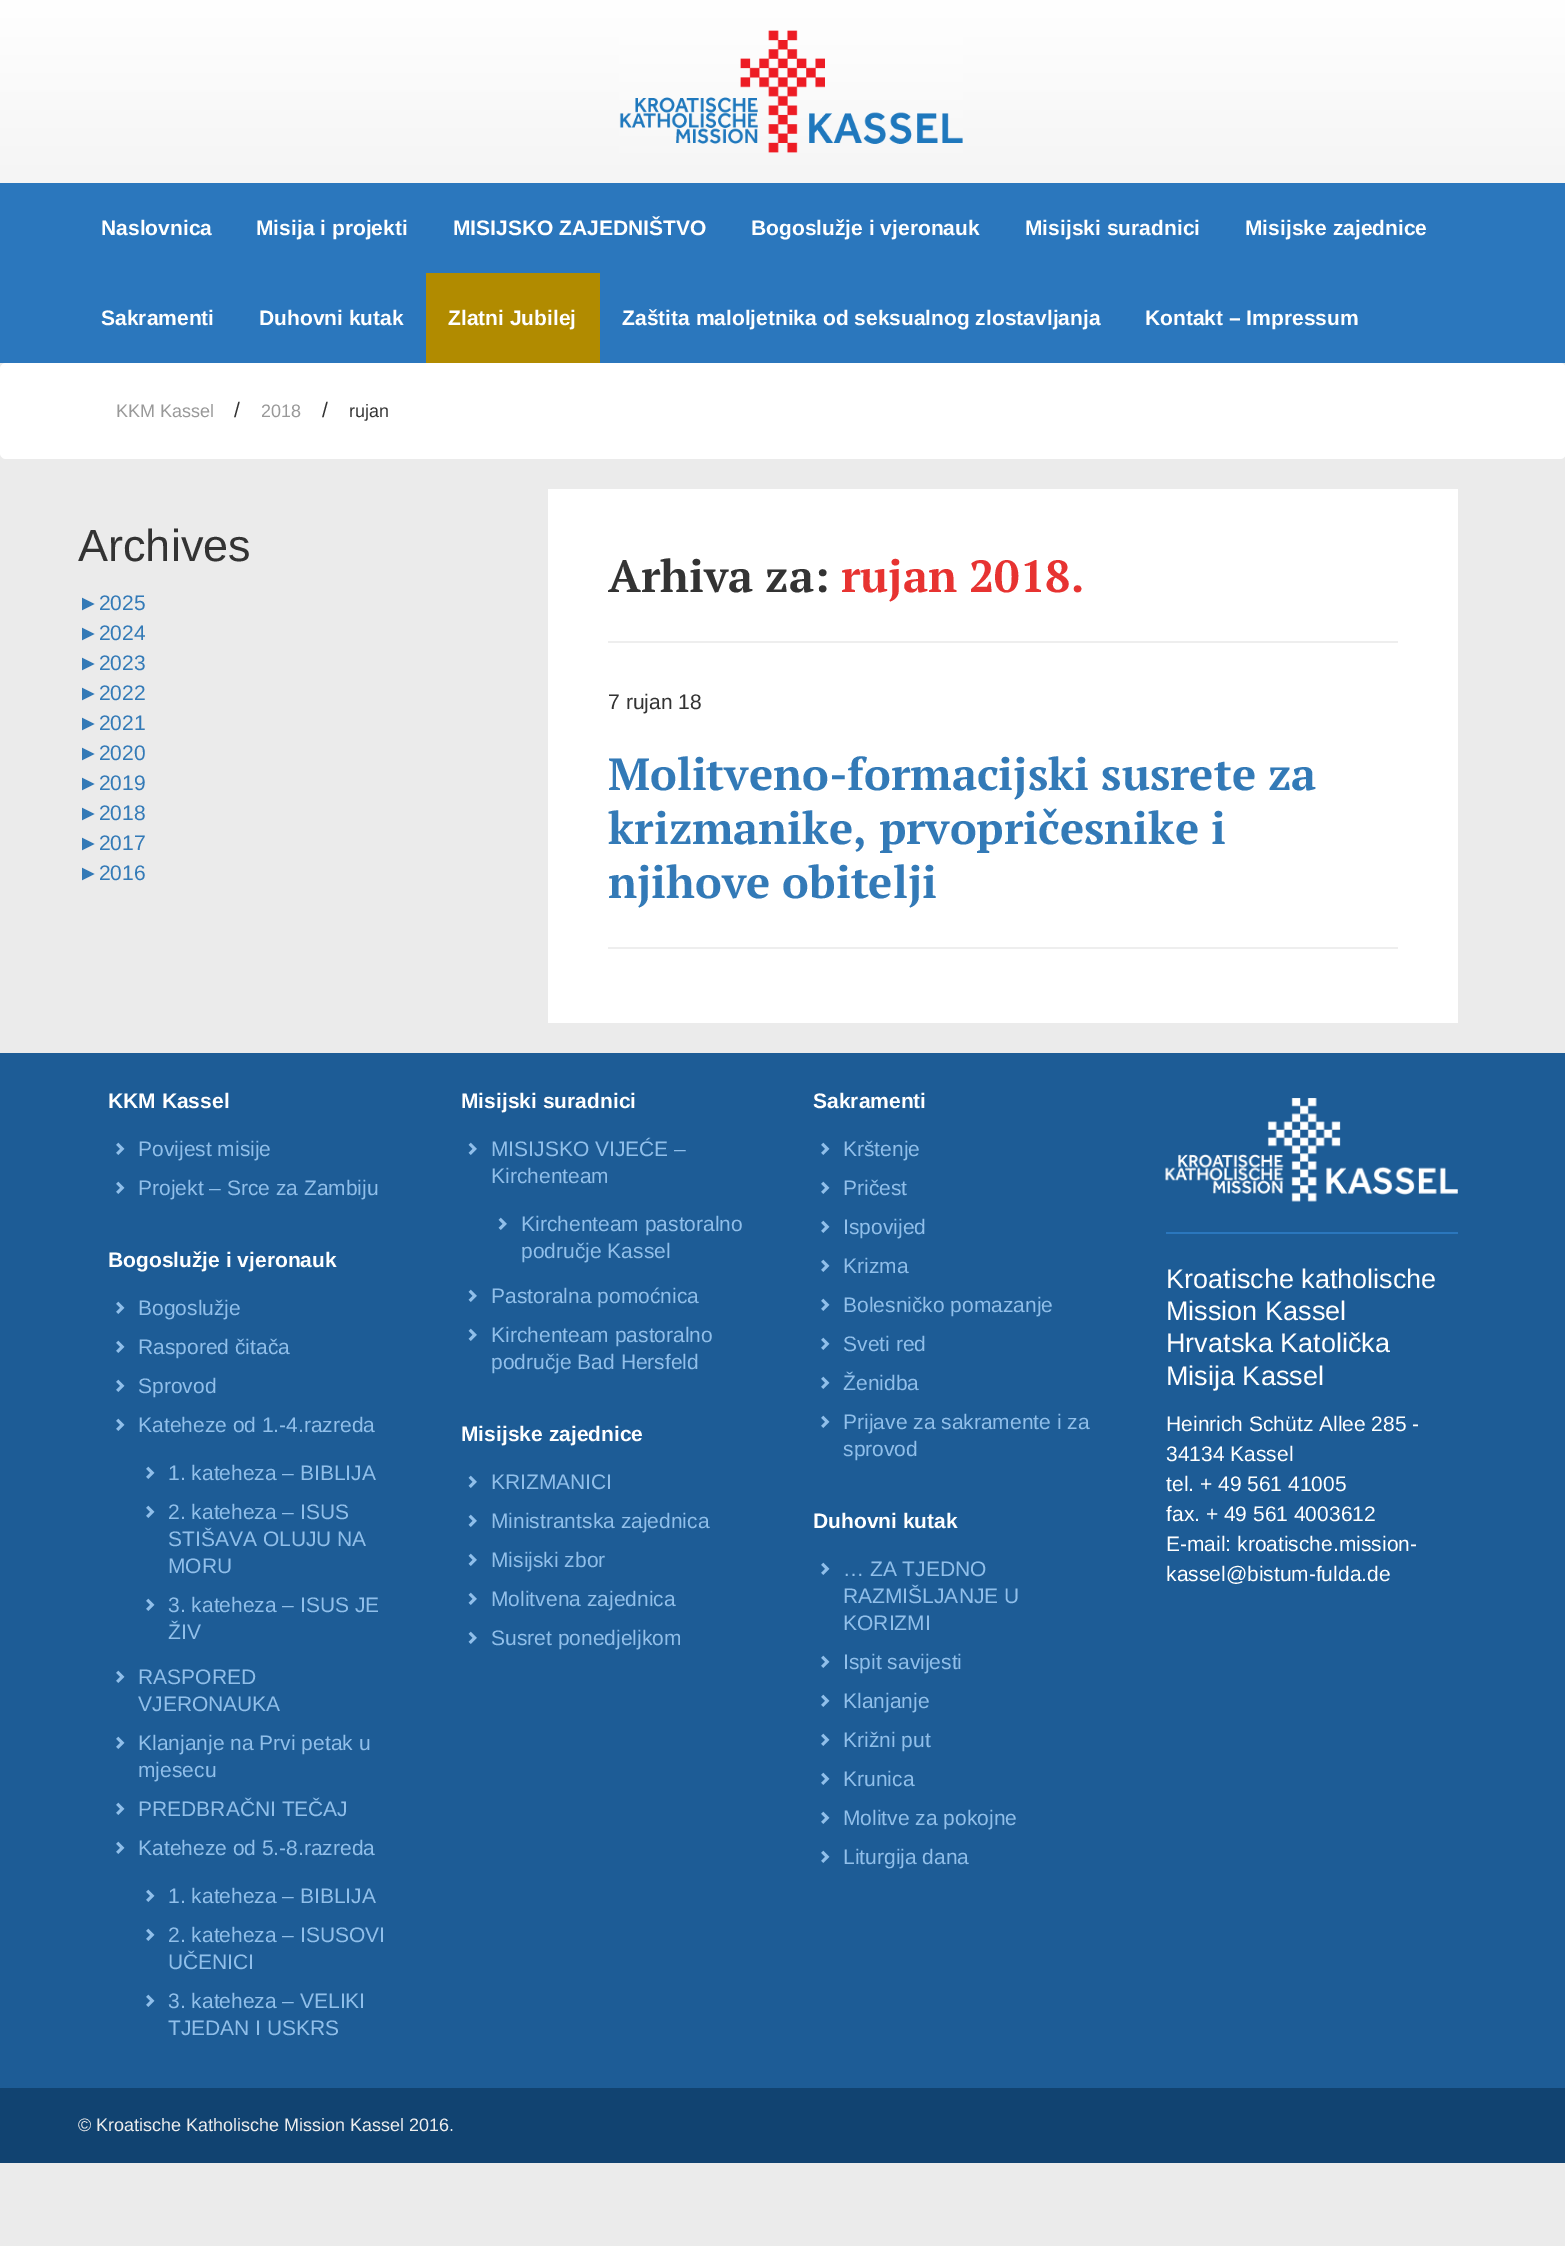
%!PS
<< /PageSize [1565 2246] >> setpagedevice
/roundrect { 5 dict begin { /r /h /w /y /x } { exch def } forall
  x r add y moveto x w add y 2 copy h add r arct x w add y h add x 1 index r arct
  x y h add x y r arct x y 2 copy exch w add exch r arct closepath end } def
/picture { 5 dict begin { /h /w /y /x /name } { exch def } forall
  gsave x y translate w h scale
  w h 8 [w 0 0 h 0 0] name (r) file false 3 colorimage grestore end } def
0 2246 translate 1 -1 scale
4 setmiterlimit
0.922 setgray
0 0 1565 2246 rectfill
gsave newpath 0 0 moveto 1565 0 lineto 1565 183 lineto 0 183 lineto closepath clip newpath
<< /ShadingType 2 /ColorSpace /DeviceRGB /Coords [783 0 783 363] /Extend [true true] /Function << /FunctionType 2 /Domain [0 1] /C0 [1 1 1] /C1 [0.922 0.922 0.922] /N 1 >> >> shfill grestore
(img1.rgb) 619 30 344 123 picture
0.169 0.467 0.741 setrgbcolor
0 183 1565 180 rectfill
/LiberationSans-Bold [21 0 0 -21 0 0] selectfont
1 setgray
101 235 moveto (Naslovnica) show
256 235 moveto (Misija i projekti) show
453 235 moveto (MISIJSKO ZAJEDNIŠTVO) show
751 235 moveto (Bogoslužje i vjeronauk) show
1025 235 moveto (Misijski suradnici) show
1245 235 moveto (Misijske zajednice) show
101 325 moveto (Sakramenti) show
259 325 moveto (Duhovni kutak) show
0.694 0.545 0 setrgbcolor
426 273 174 90 rectfill
1 setgray
448 325 moveto (Zlatni Jubilej) show
622 325 moveto (Zaštita maloljetnika od seksualnog zlostavljanja) show
1145 325 moveto (Kontakt – Impressum) show
0 363 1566 96 6 roundrect fill
/LiberationSans-Regular [18 0 0 -18 0 0] selectfont
0.6 setgray
116 417 moveto (KKM Kassel) show
/LiberationSans-Regular [21 0 0 -21 0 0] selectfont
0.2 setgray
234 417 moveto (/) show
/LiberationSans-Regular [18 0 0 -18 0 0] selectfont
0.6 setgray
261 417 moveto (2018) show
/LiberationSans-Regular [21 0 0 -21 0 0] selectfont
0.2 setgray
322 417 moveto (/) show
/LiberationSans-Regular [18 0 0 -18 0 0] selectfont
349 417 moveto (rujan) show
/LiberationSans-Regular [45 0 0 -45 0 0] selectfont
78 561 moveto (Archives) show
/LiberationSans-Regular [21 0 0 -21 0 0] selectfont
0.2 0.478 0.718 setrgbcolor
78 610 moveto (►2025) show
78 640 moveto (►2024) show
78 670 moveto (►2023) show
78 700 moveto (►2022) show
78 730 moveto (►2021) show
78 760 moveto (►2020) show
78 790 moveto (►2019) show
78 820 moveto (►2018) show
78 850 moveto (►2017) show
78 880 moveto (►2016) show
1 setgray
548 489 910 534 rectfill
0.933 setgray
608 641 790 2 rectfill
/PTSerif-Bold [45 0 0 -45 0 0] selectfont
0.2 setgray
608 592 moveto (Arhiva za:) show
0.906 0.2 0.192 setrgbcolor
841 592 moveto (rujan 2018.) show
/LiberationSans-Regular [21 0 0 -21 0 0] selectfont
0.2 setgray
608 709 moveto (7 rujan 18) show
0.933 setgray
608 947 790 2 rectfill
/PTSerif-Bold [45 0 0 -45 0 0] selectfont
0.2 0.478 0.718 setrgbcolor
608 790 moveto (Molitveno-formacijski susrete za) show
608 844 moveto (krizmanike, prvopričesnike i) show
608 898 moveto (njihove obitelji) show
0.114 0.361 0.588 setrgbcolor
0 1053 1565 1035 rectfill
/LiberationSans-Bold [21 0 0 -21 0 0] selectfont
1 setgray
108 1108 moveto (KKM Kassel) show
(img2.rgb) 116 1142 9 13 picture
/LiberationSans-Regular [21 0 0 -21 0 0] selectfont
0.565 0.749 0.918 setrgbcolor
138 1156 moveto (Povijest misije) show
(img2.rgb) 116 1181 9 13 picture
138 1195 moveto (Projekt – Srce za Zambiju) show
/LiberationSans-Bold [21 0 0 -21 0 0] selectfont
1 setgray
108 1267 moveto (Bogoslužje i vjeronauk) show
(img2.rgb) 116 1301 9 13 picture
/LiberationSans-Regular [21 0 0 -21 0 0] selectfont
0.565 0.749 0.918 setrgbcolor
138 1315 moveto (Bogoslužje) show
(img2.rgb) 116 1340 9 13 picture
138 1354 moveto (Raspored čitača) show
(img2.rgb) 116 1379 9 13 picture
138 1393 moveto (Sprovod) show
(img2.rgb) 116 1418 9 13 picture
138 1432 moveto (Kateheze od 1.-4.razreda) show
(img2.rgb) 146 1466 9 13 picture
168 1480 moveto (1. kateheza – BIBLIJA) show
(img2.rgb) 146 1505 9 13 picture
168 1519 moveto (2. kateheza – ISUS) show
168 1546 moveto (STIŠAVA OLUJU NA) show
168 1573 moveto (MORU) show
(img2.rgb) 146 1598 9 13 picture
168 1612 moveto (3. kateheza – ISUS JE) show
168 1639 moveto (ŽIV) show
(img2.rgb) 116 1670 9 13 picture
138 1684 moveto (RASPORED) show
138 1711 moveto (VJERONAUKA) show
(img2.rgb) 116 1736 9 13 picture
138 1750 moveto (Klanjanje na Prvi petak u) show
138 1777 moveto (mjesecu) show
(img2.rgb) 116 1802 9 13 picture
138 1816 moveto (PREDBRAČNI TEČAJ) show
(img2.rgb) 116 1841 9 13 picture
138 1855 moveto (Kateheze od 5.-8.razreda) show
(img2.rgb) 146 1889 9 13 picture
168 1903 moveto (1. kateheza – BIBLIJA) show
(img2.rgb) 146 1928 9 13 picture
168 1942 moveto (2. kateheza – ISUSOVI) show
168 1969 moveto (UČENICI) show
(img2.rgb) 146 1994 9 13 picture
168 2008 moveto (3. kateheza – VELIKI) show
168 2035 moveto (TJEDAN I USKRS) show
/LiberationSans-Bold [21 0 0 -21 0 0] selectfont
1 setgray
461 1108 moveto (Misijski suradnici) show
(img3.rgb) 468 1142 9 13 picture
/LiberationSans-Regular [21 0 0 -21 0 0] selectfont
0.565 0.749 0.918 setrgbcolor
491 1156 moveto (MISIJSKO VIJEĆE –) show
491 1183 moveto (Kirchenteam) show
(img3.rgb) 498 1217 9 13 picture
521 1231 moveto (Kirchenteam pastoralno) show
521 1258 moveto (područje Kassel) show
(img3.rgb) 468 1289 9 13 picture
491 1303 moveto (Pastoralna pomoćnica) show
(img3.rgb) 468 1328 9 13 picture
491 1342 moveto (Kirchenteam pastoralno) show
491 1369 moveto (područje Bad Hersfeld) show
/LiberationSans-Bold [21 0 0 -21 0 0] selectfont
1 setgray
461 1441 moveto (Misijske zajednice) show
(img3.rgb) 468 1475 9 13 picture
/LiberationSans-Regular [21 0 0 -21 0 0] selectfont
0.565 0.749 0.918 setrgbcolor
491 1489 moveto (KRIZMANICI) show
(img3.rgb) 468 1514 9 13 picture
491 1528 moveto (Ministrantska zajednica) show
(img3.rgb) 468 1553 9 13 picture
491 1567 moveto (Misijski zbor) show
(img3.rgb) 468 1592 9 13 picture
491 1606 moveto (Molitvena zajednica) show
(img3.rgb) 468 1631 9 13 picture
491 1645 moveto (Susret ponedjeljkom) show
/LiberationSans-Bold [21 0 0 -21 0 0] selectfont
1 setgray
813 1108 moveto (Sakramenti) show
(img2.rgb) 821 1142 9 13 picture
/LiberationSans-Regular [21 0 0 -21 0 0] selectfont
0.565 0.749 0.918 setrgbcolor
843 1156 moveto (Krštenje) show
(img2.rgb) 821 1181 9 13 picture
843 1195 moveto (Pričest) show
(img2.rgb) 821 1220 9 13 picture
843 1234 moveto (Ispovijed) show
(img2.rgb) 821 1259 9 13 picture
843 1273 moveto (Krizma) show
(img2.rgb) 821 1298 9 13 picture
843 1312 moveto (Bolesničko pomazanje) show
(img2.rgb) 821 1337 9 13 picture
843 1351 moveto (Sveti red) show
(img2.rgb) 821 1376 9 13 picture
843 1390 moveto (Ženidba) show
(img2.rgb) 821 1415 9 13 picture
843 1429 moveto (Prijave za sakramente i za) show
843 1456 moveto (sprovod) show
/LiberationSans-Bold [21 0 0 -21 0 0] selectfont
1 setgray
813 1528 moveto (Duhovni kutak) show
(img2.rgb) 821 1562 9 13 picture
/LiberationSans-Regular [21 0 0 -21 0 0] selectfont
0.565 0.749 0.918 setrgbcolor
843 1576 moveto (… ZA TJEDNO) show
843 1603 moveto (RAZMIŠLJANJE U) show
843 1630 moveto (KORIZMI) show
(img2.rgb) 821 1655 9 13 picture
843 1669 moveto (Ispit savijesti) show
(img2.rgb) 821 1694 9 13 picture
843 1708 moveto (Klanjanje) show
(img2.rgb) 821 1733 9 13 picture
843 1747 moveto (Križni put) show
(img2.rgb) 821 1772 9 13 picture
843 1786 moveto (Krunica) show
(img2.rgb) 821 1811 9 13 picture
843 1825 moveto (Molitve za pokojne) show
(img2.rgb) 821 1850 9 13 picture
843 1864 moveto (Liturgija dana) show
(img4.rgb) 1165 1098 293 104 picture
0.169 0.467 0.741 setrgbcolor
1166 1232 292 2 rectfill
/LiberationSans-Regular [27 0 0 -27 0 0] selectfont
1 setgray
1166 1288 moveto (Kroatische katholische) show
1166 1320 moveto (Mission Kassel) show
1166 1352 moveto (Hrvatska Katolička) show
1166 1385 moveto (Misija Kassel) show
/LiberationSans-Regular [21 0 0 -21 0 0] selectfont
1166 1431 moveto (Heinrich Schütz Allee 285 -) show
1166 1461 moveto (34134 Kassel) show
1166 1491 moveto (tel. + 49 561 41005) show
1166 1521 moveto (fax. + 49 561 4003612) show
1166 1551 moveto (E-mail: kroatische.mission-) show
1166 1581 moveto (kassel@bistum-fulda.de) show
0.067 0.263 0.443 setrgbcolor
0 2088 1565 75 rectfill
/LiberationSans-Regular [18 0 0 -18 0 0] selectfont
0.933 setgray
78 2131 moveto (© Kroatische Katholische Mission Kassel 2016.) show
showpage
